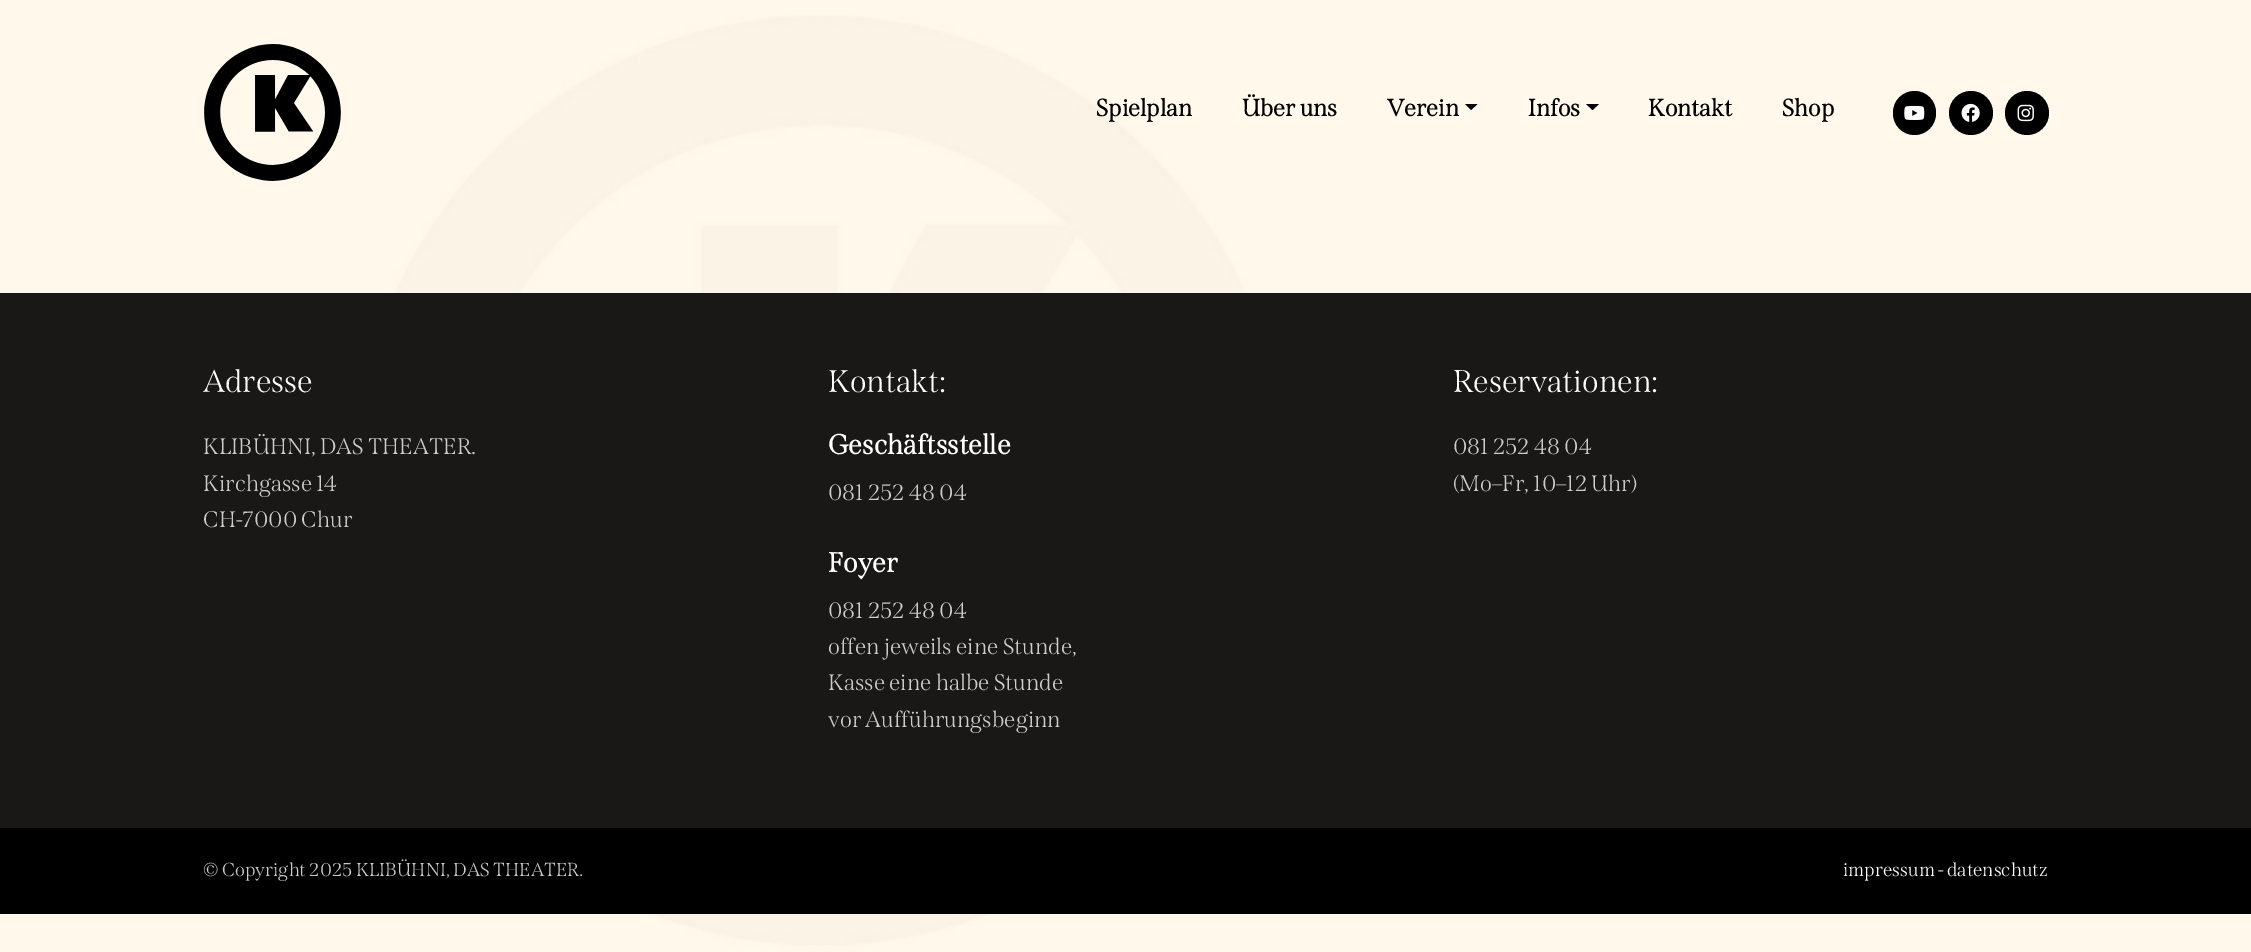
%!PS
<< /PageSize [2251 952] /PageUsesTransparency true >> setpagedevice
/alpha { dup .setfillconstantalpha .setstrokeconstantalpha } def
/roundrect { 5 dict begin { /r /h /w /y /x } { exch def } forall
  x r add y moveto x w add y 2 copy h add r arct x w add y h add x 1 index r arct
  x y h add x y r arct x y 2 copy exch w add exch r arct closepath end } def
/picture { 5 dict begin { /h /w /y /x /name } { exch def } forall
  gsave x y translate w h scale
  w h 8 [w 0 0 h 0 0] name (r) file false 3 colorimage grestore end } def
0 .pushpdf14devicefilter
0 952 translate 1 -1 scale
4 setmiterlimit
1 setgray
0 0 2251 952 rectfill
(img1.rgb) 0 0 2251 952 picture
(img2.rgb) 204 44 137 137 picture
/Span-Bold [23.75 0 0 -23.75 0 0] selectfont
0 setgray
1096 116 moveto (Spielplan) show
1242 116 moveto (Über uns) show
1387 116 moveto (Verein) show
newpath 1465 104 moveto 1477.5 104 lineto 1471 110 lineto closepath fill
1528 116 moveto (Infos) show
newpath 1586 104 moveto 1599 104 lineto 1592.5 110 lineto closepath fill
1648 116 moveto (Kontakt) show
1782 116 moveto (Shop) show
1893 91 43 44 21.5 roundrect fill
(img3.rgb) 1904 105 21 15 picture
newpath 1971 113 22 0 360 arc closepath fill
(img4.rgb) 1961 103 19 19 picture
newpath 2027 113 22 0 360 arc closepath fill
(img5.rgb) 2017 104 17 18 picture
0.9 alpha
0 293 2251 535 rectfill
/Span-Light [31.25 0 0 -31.25 0 0] selectfont
1 alpha
1 setgray
203 392 moveto (Adresse) show
/Span-Light [22.5 0 0 -22.5 0 0] selectfont
0.8 setgray
203 454 moveto (KLIBÜHNI, DAS THEATER.) show
203 491 moveto (Kirchgasse 14) show
203 527 moveto (CH-7000 Chur) show
/Span-Light [31.25 0 0 -31.25 0 0] selectfont
1 setgray
828 392 moveto (Kontakt:) show
/Span-Bold [27.5 0 0 -27.5 0 0] selectfont
828 454 moveto (Geschäftsstelle) show
/Span-Light [22.5 0 0 -22.5 0 0] selectfont
0.8 setgray
828 500 moveto (081 252 48 04) show
/Span-Bold [27.5 0 0 -27.5 0 0] selectfont
1 setgray
828 572 moveto (Foyer) show
/Span-Light [22.5 0 0 -22.5 0 0] selectfont
0.8 setgray
828 618 moveto (081 252 48 04) show
828 654 moveto (offen jeweils eine Stunde,) show
828 690 moveto (Kasse eine halbe Stunde) show
828 727 moveto (vor Aufführungsbeginn) show
/Span-Light [31.25 0 0 -31.25 0 0] selectfont
1 setgray
1453 392 moveto (Reservationen:) show
/Span-Light [22.5 0 0 -22.5 0 0] selectfont
0.8 setgray
1453 454 moveto (081 252 48 04) show
1453 491 moveto (\(Mo–Fr, 10–12 Uhr\)) show
0 setgray
0 828 2251 86 rectfill
/Span-Light [18.75 0 0 -18.75 0 0] selectfont
0.8 setgray
203 876 moveto (© Copyright 2025 KLIBÜHNI, DAS THEATER.) show
1 setgray
1843 876 moveto (impressum) show
0.8 setgray
1938 876 moveto (-) show
1 setgray
1947 876 moveto (datenschutz) show
.poppdf14devicefilter showpage
